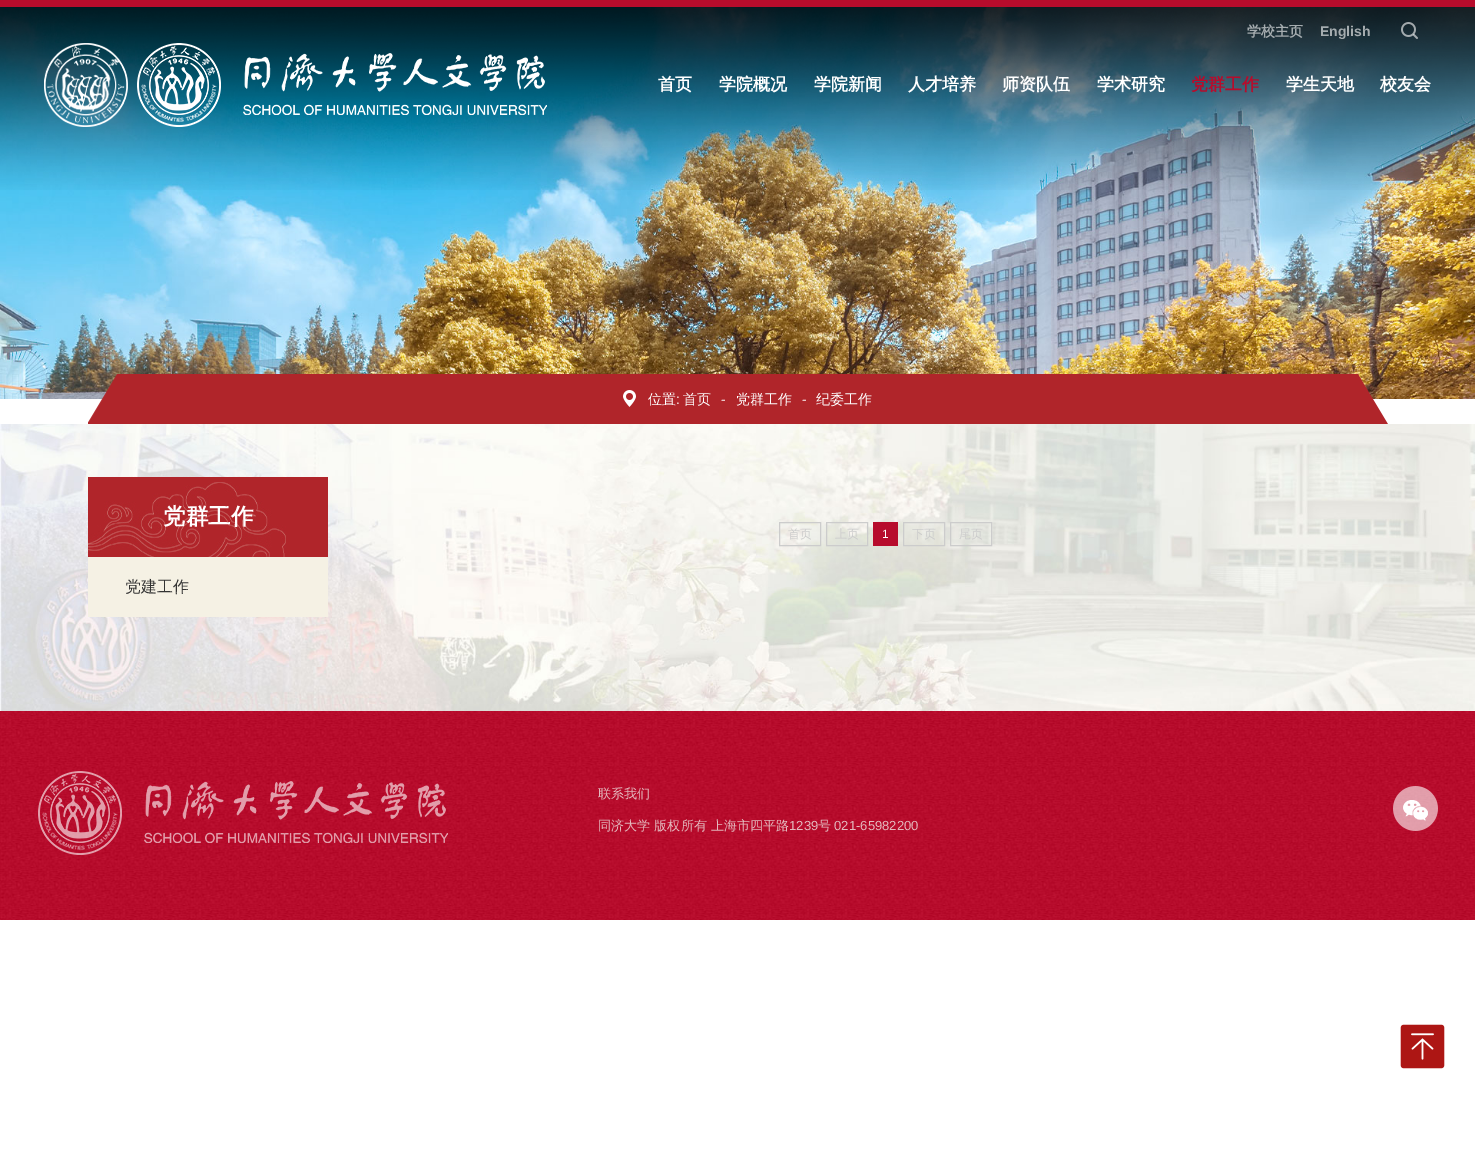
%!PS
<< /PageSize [1475 1149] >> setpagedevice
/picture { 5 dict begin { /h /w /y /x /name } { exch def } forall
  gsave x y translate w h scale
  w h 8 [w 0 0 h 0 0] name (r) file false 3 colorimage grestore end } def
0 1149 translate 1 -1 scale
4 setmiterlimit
1 setgray
0 0 1475 1149 rectfill
(img1.rgb) 0 7 1475 392 picture
(img2.rgb) 0 7 1475 183 picture
0.718 0.047 0.173 setrgbcolor
0 0 1475 7 rectfill
/WenQuanYiZenHei-Bold [14 0 0 -14 0 0] selectfont
0.647 0.675 0.686 setrgbcolor
1247 36 moveto (学校主页) show
/LiberationSans-Bold [14 0 0 -14 0 0] selectfont
1320 36 moveto (English) show
(img3.rgb) 1401 22 17 17 picture
(img4.rgb) 44 43 503 84 picture
/WenQuanYiZenHei-Bold [17 0 0 -17 0 0] selectfont
1 setgray
658 90 moveto (首页) show
719 90 moveto (学院概况) show
814 90 moveto (学院新闻) show
908 90 moveto (人才培养) show
1002 90 moveto (师资队伍) show
1097 90 moveto (学术研究) show
0.718 0.047 0.173 setrgbcolor
1191 90 moveto (党群工作) show
1 setgray
1286 90 moveto (学生天地) show
1380 90 moveto (校友会) show
(img5.rgb) 88 374 1300 50 picture
(img6.rgb) 623 390 13 17 picture
/WenQuanYiZenHei-Medium [14 0 0 -14 0 0] selectfont
648 404 moveto (位置) show
/LiberationSans-Regular [14 0 0 -14 0 0] selectfont
676 404 moveto (:) show
/WenQuanYiZenHei-Medium [14 0 0 -14 0 0] selectfont
683 404 moveto (首页) show
/LiberationSans-Regular [14 0 0 -14 0 0] selectfont
721 404 moveto (-) show
/WenQuanYiZenHei-Medium [14 0 0 -14 0 0] selectfont
736 404 moveto (党群工作) show
/LiberationSans-Regular [14 0 0 -14 0 0] selectfont
802 404 moveto (-) show
/WenQuanYiZenHei-Medium [14 0 0 -14 0 0] selectfont
816 404 moveto (纪委工作) show
(img7.rgb) 0 424 1475 287 picture
0.69 0.145 0.165 setrgbcolor
88 477 240 80 rectfill
(img8.rgb) 88 482 198 75 picture
/WenQuanYiZenHei-Bold [22.5 0 0 -22.5 0 0] selectfont
1 setgray
163 524 moveto (党群工作) show
0.961 0.945 0.894 setrgbcolor
88 557 240 60 rectfill
/WenQuanYiZenHei-Medium [16 0 0 -16 0 0] selectfont
0.2 setgray
125 592 moveto (党建工作) show
0.8 setgray
779.5 522.5 41 23 rectstroke
/WenQuanYiZenHei-Medium [12 0 0 -12 0 0] selectfont
788 538 moveto (首页) show
826.5 522.5 41 23 rectstroke
835 538 moveto (上页) show
0.718 0.047 0.173 setrgbcolor
873 522 25 24 rectfill
/LiberationSans-Regular [12 0 0 -12 0 0] selectfont
1 setgray
882 538 moveto (1) show
0.8 setgray
903.5 522.5 41 23 rectstroke
/WenQuanYiZenHei-Medium [12 0 0 -12 0 0] selectfont
912 538 moveto (下页) show
950.5 522.5 41 23 rectstroke
959 538 moveto (尾页) show
(img9.rgb) 0 711 1475 209 picture
(img10.rgb) 38 771 410 84 picture
/WenQuanYiZenHei-Medium [13.1 0 0 -13.1 0 0] selectfont
0.894 0.725 0.745 setrgbcolor
598 798 moveto (联系我们) show
598 830 moveto (同济大学 版权所有 上海市四平路) show
/LiberationSans-Regular [13.1 0 0 -13.1 0 0] selectfont
789 830 moveto (1239) show
/WenQuanYiZenHei-Medium [13.1 0 0 -13.1 0 0] selectfont
818 830 moveto (号) show
/LiberationSans-Regular [13.1 0 0 -13.1 0 0] selectfont
834 830 moveto (021-65982200) show
(img11.rgb) 1393 786 45 45 picture
(img12.rgb) 1400 1024 45 45 picture
showpage
